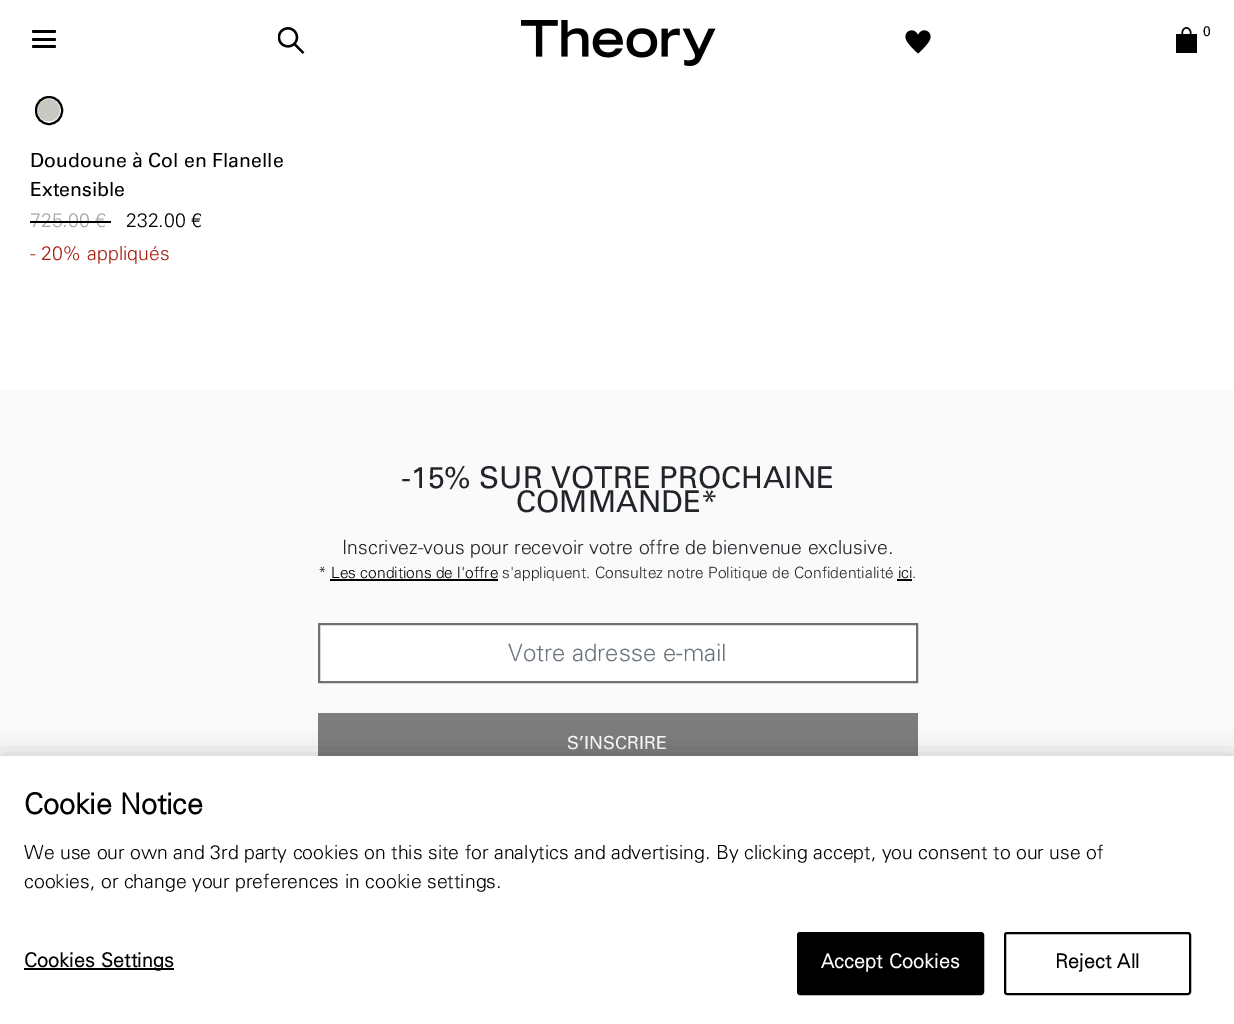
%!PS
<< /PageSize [1234 1024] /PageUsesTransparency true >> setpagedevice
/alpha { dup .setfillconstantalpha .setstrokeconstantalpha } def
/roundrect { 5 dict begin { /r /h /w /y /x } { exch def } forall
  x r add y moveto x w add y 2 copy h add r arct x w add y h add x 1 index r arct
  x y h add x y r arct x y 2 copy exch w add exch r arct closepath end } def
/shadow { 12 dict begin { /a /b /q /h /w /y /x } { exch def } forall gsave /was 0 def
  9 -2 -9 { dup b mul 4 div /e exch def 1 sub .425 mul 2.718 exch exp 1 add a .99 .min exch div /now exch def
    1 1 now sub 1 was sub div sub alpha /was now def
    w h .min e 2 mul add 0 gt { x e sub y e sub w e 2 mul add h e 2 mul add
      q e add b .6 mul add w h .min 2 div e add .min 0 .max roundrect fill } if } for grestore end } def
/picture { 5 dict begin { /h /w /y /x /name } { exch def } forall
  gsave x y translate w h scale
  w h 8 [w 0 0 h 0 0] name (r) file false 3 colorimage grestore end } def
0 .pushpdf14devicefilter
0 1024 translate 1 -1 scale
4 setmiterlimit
1 setgray
0 0 1234 1024 rectfill
(img1.rgb) 521 20 195 46 picture
0 setgray
32 30 24 3 1.5 roundrect fill
32 38 24 3 1.5 roundrect fill
32 45 24 3 1.5 roundrect fill
(img2.rgb) 278 27 27 27 picture
(img3.rgb) 905 30 26 24 picture
(img4.rgb) 1176 27 21 26 picture
/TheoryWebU-Regular [14 0 0 -14 0 0] selectfont
1203 36 moveto (0) show
(img5.rgb) 37 99 23 23 picture
2 setlinewidth
36 97 26 27 13 roundrect stroke
/TheoryWebU-Regular [19.5 0 0 -19.5 0 0] selectfont
30 167 moveto (Doudoune à Col en Flanelle) show
30 196 moveto (Extensible) show
/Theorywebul-Light [19.5 0 0 -19.5 0 0] selectfont
0.647 setgray
30 227 moveto (725.00 €) show
0 setgray
30 221 81 2 rectfill
126 227 moveto (232.00 €) show
0.643 0.129 0.071 setrgbcolor
30 260 moveto (- 20% appliqués) show
0.98 setgray
0 390 1234 366 rectfill
/TheoryWebU-Regular [30 0 0 -30 0 0] selectfont
0.129 0.145 0.161 setrgbcolor
401 488 moveto (-15% SUR VOTRE PROCHAINE) show
516 512 moveto (COMMANDE*) show
/Theorywebul-Light [19.5 0 0 -19.5 0 0] selectfont
342 554 moveto (Inscrivez-vous pour recevoir votre offre de bienvenue exclusive.) show
/Theorywebul-Light [15.6 0 0 -15.6 0 0] selectfont
318 578 moveto (*) show
0 setgray
331 578 moveto (Les conditions de l'offre) show
330 579 168 2 rectfill
0.129 0.145 0.161 setrgbcolor
502 578 moveto (s'appliquent. Consultez notre Politique de Confidentialité) show
0 setgray
898 578 moveto (ici) show
0.129 0.145 0.161 setrgbcolor
912 578 moveto (.) show
0 setgray
897 579 15 2 rectfill
1 setgray
newpath 319 624 moveto 917 624 lineto 917 682 lineto 319 682 lineto closepath gsave fill grestore
0.439 setgray
stroke
/Theorywebul-Light [24 0 0 -24 0 0] selectfont
0.424 0.459 0.49 setrgbcolor
508 661 moveto (Votre adresse e-mail) show
0.49 setgray
318 713 600 43 rectfill
/TheoryWebU-Regular [18 0 0 -18 0 0] selectfont
0.992 setgray
567 749 moveto (S’INSCRIRE) show
0 setgray
0 756 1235 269 0 13.5 0.2 shadow
1 setgray
0 756 1234 268 rectfill
/Theorywebul-Bold [28.75 0 0 -28.75 0 0] selectfont
0 setgray
24 814 moveto (Cookie Notice) show
/Theorywebul-Light [19.5 0 0 -19.5 0 0] selectfont
24 859 moveto (We use our own and 3rd party cookies on this site for analytics and advertising. By clicking accept, you consent to our use of) show
24 888 moveto (cookies, or change your preferences in cookie settings.) show
24 968 150 2 rectfill
/Theorywebul-Bold [19.5 0 0 -19.5 0 0] selectfont
24 967 moveto 0.25 0 (Cookies Settings) ashow
798 933 185 61 2 roundrect gsave fill grestore
stroke
0.992 setgray
821 968 moveto 0.25 0 (Accept Cookies) ashow
0 setgray
1005 933 185 61 2 roundrect stroke
1055 968 moveto 0.25 0 (Reject All) ashow
.poppdf14devicefilter showpage
